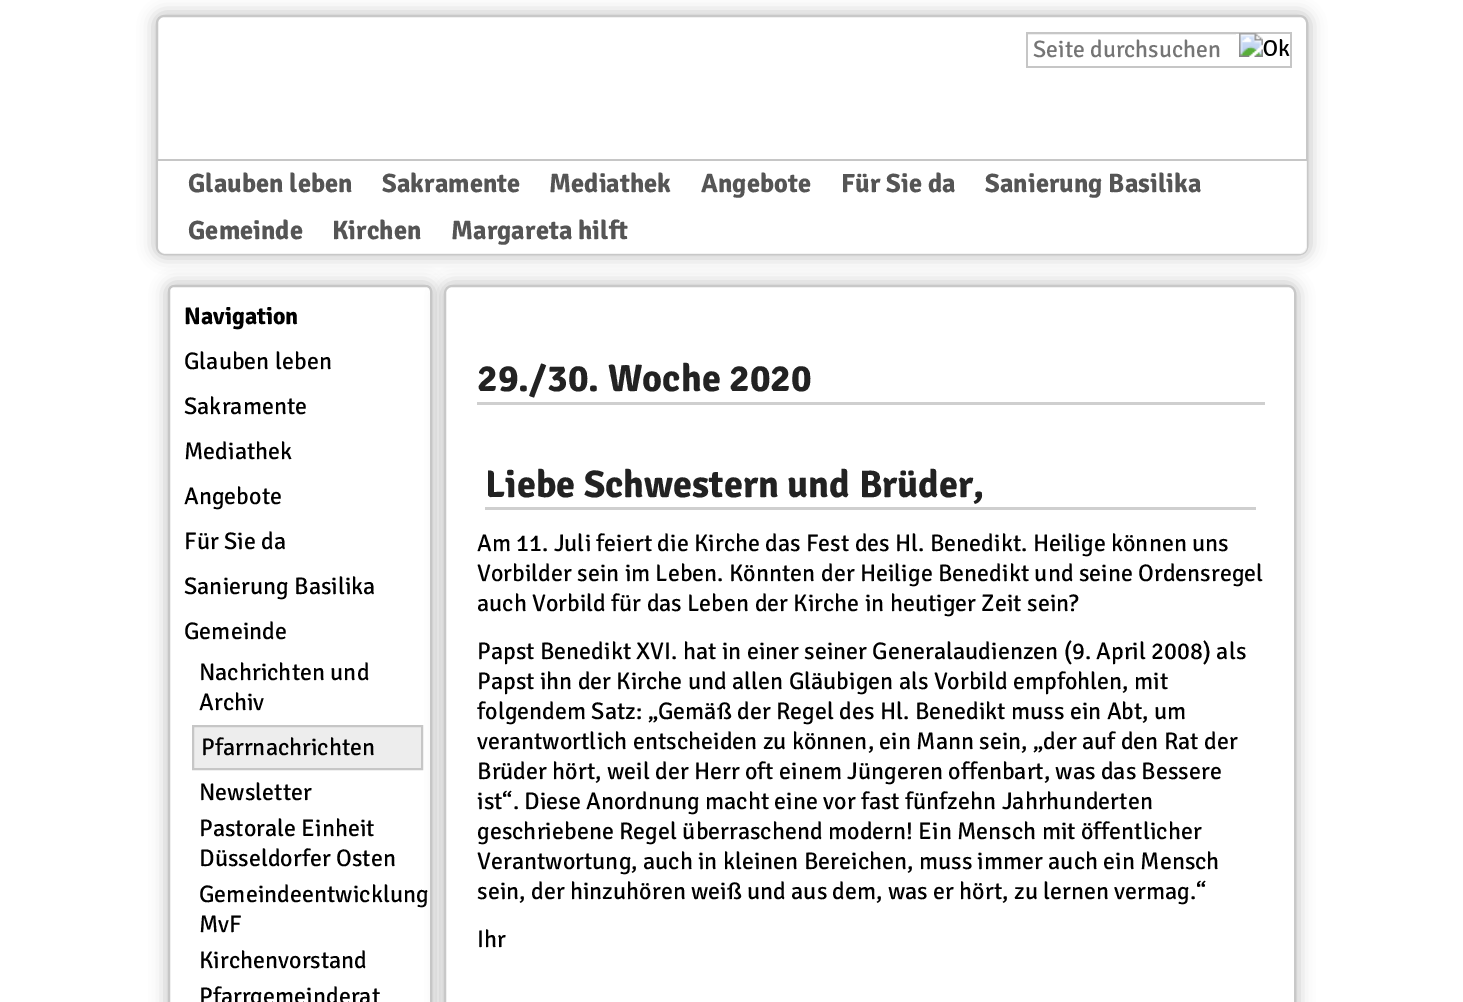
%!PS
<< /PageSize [1463 1002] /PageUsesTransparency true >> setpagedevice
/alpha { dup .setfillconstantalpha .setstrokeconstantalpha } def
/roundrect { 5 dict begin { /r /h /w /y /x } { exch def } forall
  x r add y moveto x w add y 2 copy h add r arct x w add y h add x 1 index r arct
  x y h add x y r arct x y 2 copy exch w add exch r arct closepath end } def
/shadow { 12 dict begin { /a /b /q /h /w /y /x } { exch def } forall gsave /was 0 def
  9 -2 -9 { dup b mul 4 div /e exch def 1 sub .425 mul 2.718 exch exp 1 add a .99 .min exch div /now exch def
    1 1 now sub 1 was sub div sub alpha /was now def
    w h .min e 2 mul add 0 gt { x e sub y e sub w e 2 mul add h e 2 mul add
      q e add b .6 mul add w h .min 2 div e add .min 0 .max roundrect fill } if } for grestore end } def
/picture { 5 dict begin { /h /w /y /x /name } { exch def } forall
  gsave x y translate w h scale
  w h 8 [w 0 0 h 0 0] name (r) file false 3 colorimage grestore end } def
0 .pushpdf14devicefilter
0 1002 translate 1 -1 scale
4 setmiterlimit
1 setgray
0 0 1463 1002 rectfill
0.784 setgray
153 12 1158 246 11 7.5 1 shadow
1 setgray
157 16 1150 238 7 roundrect gsave fill grestore
0.784 setgray
2 setlinewidth
stroke
0.933 setgray
1028 34 208 1 rectfill
0.776 setgray
1026 32 266 2 rectfill
1026 66 210 2 rectfill
1026 32 2 36 rectfill
/Signika-Regular [23.75 0 0 -23.75 0 0] selectfont
0.459 setgray
1033 57 moveto (Seite durchsuchen) show
0.776 setgray
1290 32 2 36 rectfill
1236 66 56 2 rectfill
(img1.rgb) 1239 33 51 24 picture
0.8 alpha
1 setgray
newpath 158 159 moveto 1307 159 lineto 1307 246 lineto 1307 250.5 1303.5 254 1299 254 curveto 166 254 lineto 161.5 254 158 250.5 158 246 curveto closepath fill
1 alpha
0.776 setgray
158 159 1149 2 rectfill
/Signika-Bold [26.5 0 0 -26.5 0 0] selectfont
0.333 setgray
188 192 moveto (Glauben leben) show
382 192 moveto (Sakramente) show
549 192 moveto (Mediathek) show
701 192 moveto (Angebote) show
841 192 moveto (Für Sie da) show
985 192 moveto (Sanierung Basilika) show
188 239 moveto (Gemeinde) show
332 239 moveto (Kirchen) show
451 239 moveto (Margareta hilft) show
0.784 setgray
165 282 270 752 9 7.5 1 shadow
1 setgray
169 286 262 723 5 roundrect gsave fill grestore
0.776 setgray
stroke
/Signika-Bold [24 0 0 -24 0 0] selectfont
0 setgray
184 324 moveto (Navigation) show
/Signika-Regular [24 0 0 -24 0 0] selectfont
184 369 moveto (Glauben leben) show
184 414 moveto (Sakramente) show
184 459 moveto (Mediathek) show
184 504 moveto (Angebote) show
184 549 moveto (Für Sie da) show
184 594 moveto (Sanierung Basilika) show
184 639 moveto (Gemeinde) show
199 680 moveto (Nachrichten und) show
199 710 moveto (Archiv) show
0.929 setgray
newpath 193 726 moveto 422 726 lineto 422 769 lineto 193 769 lineto closepath gsave fill grestore
0.776 setgray
stroke
0 setgray
201 755 moveto (Pfarrnachrichten) show
199 800 moveto (Newsletter) show
199 836 moveto (Pastorale Einheit) show
199 866 moveto (Düsseldorfer Osten) show
199 902 moveto (Gemeindeentwicklung) show
199 932 moveto (MvF) show
199 968 moveto (Kirchenvorstand) show
199 1004 moveto (Pfarrgemeinderat) show
gsave
newpath 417 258 moveto 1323 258 lineto 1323 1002 lineto 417 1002 lineto closepath 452 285 moveto 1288 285 lineto 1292.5 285 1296 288.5 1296 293 curveto 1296 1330 lineto 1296 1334.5 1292.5 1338 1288 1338 curveto 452 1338 lineto 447.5 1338 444 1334.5 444 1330 curveto 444 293 lineto 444 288.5 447.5 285 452 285 curveto closepath eoclip newpath
0.784 setgray
441 282 858 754 11 7.5 1 shadow
grestore
0.95 alpha
1 setgray
445 286 850 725 7 roundrect fill
1 alpha
0.784 setgray
445 286 850 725 7 roundrect stroke
0.812 setgray
477 402 788 3 rectfill
/Signika-Bold [38.4 0 0 -38.4 0 0] selectfont
0.133 setgray
477 391 moveto (29./30. Woche 2020) show
0.812 setgray
485 507 771 3 rectfill
0.133 setgray
485 497 moveto (Liebe Schwestern und Brüder,) show
/Signika-Regular [24 0 0 -24 0 0] selectfont
0 setgray
477 551 moveto (Am 11. Juli feiert die Kirche das Fest des Hl. Benedikt. Heilige können uns) show
477 581 moveto (Vorbilder sein im Leben. Könnten der Heilige Benedikt und seine Ordensregel) show
477 611 moveto (auch Vorbild für das Leben der Kirche in heutiger Zeit sein?) show
477 659 moveto (Papst Benedikt XVI. hat in einer seiner Generalaudienzen \(9. April 2008\) als) show
477 689 moveto (Papst ihn der Kirche und allen Gläubigen als Vorbild empfohlen, mit) show
477 719 moveto (folgendem Satz: „Gemäß der Regel des Hl. Benedikt muss ein Abt, um) show
477 749 moveto (verantwortlich entscheiden zu können, ein Mann sein, „der auf den Rat der) show
477 779 moveto (Brüder hört, weil der Herr oft einem Jüngeren offenbart, was das Bessere) show
477 809 moveto (ist“. Diese Anordnung macht eine vor fast fünfzehn Jahrhunderten) show
477 839 moveto (geschriebene Regel überraschend modern! Ein Mensch mit öffentlicher) show
477 869 moveto (Verantwortung, auch in kleinen Bereichen, muss immer auch ein Mensch) show
477 899 moveto (sein, der hinzuhören weiß und aus dem, was er hört, zu lernen vermag.“) show
477 947 moveto (Ihr) show
.poppdf14devicefilter showpage
